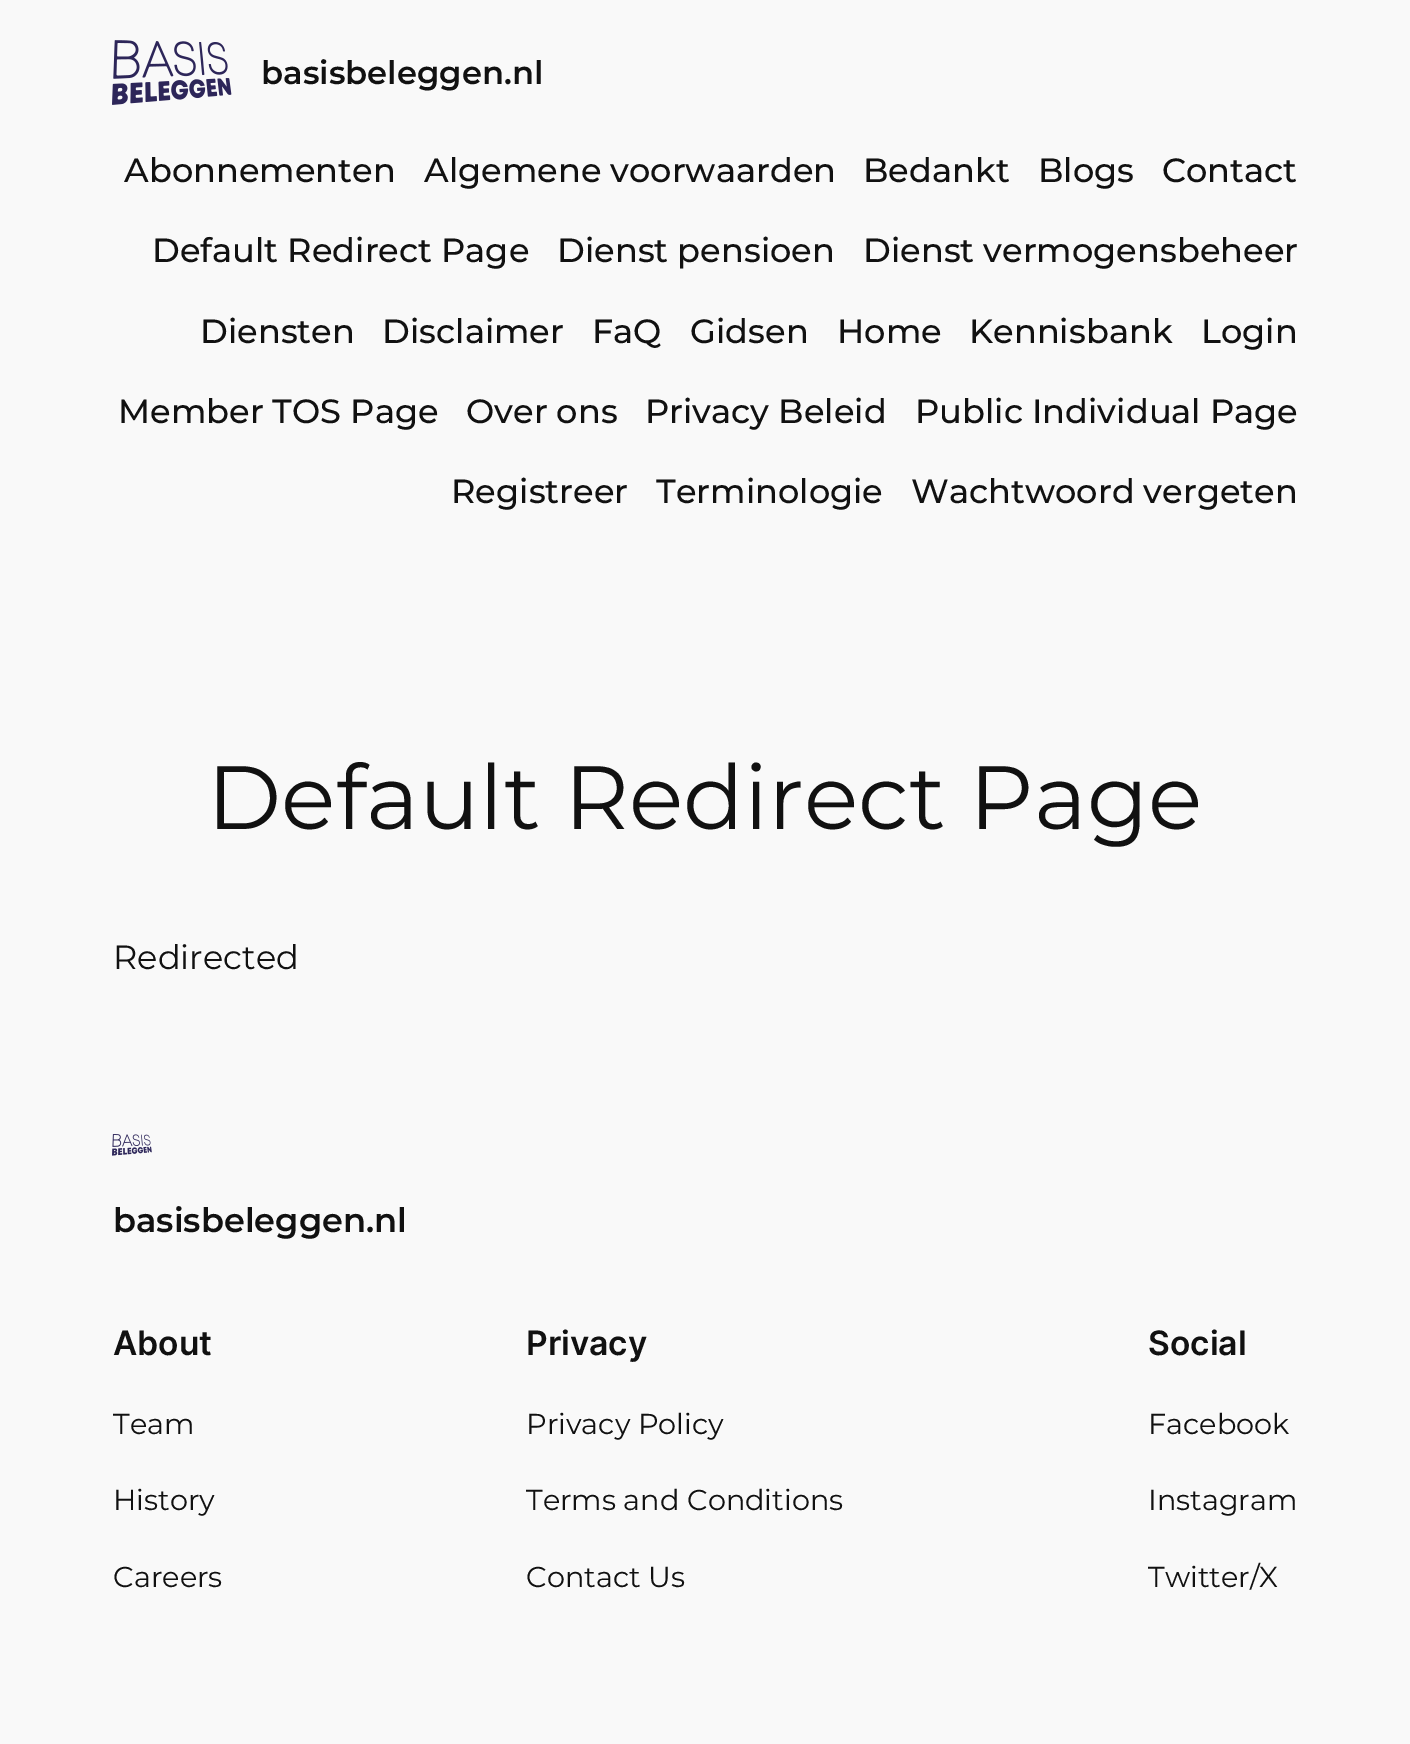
%!PS
<< /PageSize [1410 1744] >> setpagedevice
/picture { 5 dict begin { /h /w /y /x /name } { exch def } forall
  gsave x y translate w h scale
  w h 8 [w 0 0 h 0 0] name (r) file false 3 colorimage grestore end } def
0 1744 translate 1 -1 scale
4 setmiterlimit
0.976 setgray
0 0 1410 1744 rectfill
(img1.rgb) 112 40 120 65 picture
/Montserrat-SemiBold [32.25 0 0 -32.25 0 0] selectfont
0.067 setgray
261 84 moveto (basisbeleggen.nl) show
/Montserrat-Medium [33.6 0 0 -33.6 0 0] selectfont
124 182 moveto (Abonnementen) show
424 182 moveto (Algemene voorwaarden) show
863 182 moveto (Bedankt) show
1038 182 moveto (Blogs) show
1162 182 moveto (Contact) show
152 262 moveto (Default Redirect Page) show
557 262 moveto (Dienst pensioen) show
863 262 moveto (Dienst vermogensbeheer) show
200 343 moveto (Diensten) show
382 343 moveto (Disclaimer) show
592 343 moveto (FaQ) show
690 343 moveto (Gidsen) show
837 343 moveto (Home) show
969 343 moveto (Kennisbank) show
1201 343 moveto (Login) show
118 423 moveto (Member TOS Page) show
466 423 moveto (Over ons) show
645 423 moveto (Privacy Beleid) show
915 423 moveto (Public Individual Page) show
451 503 moveto (Registreer) show
656 503 moveto (Terminologie) show
911 503 moveto (Wachtwoord vergeten) show
/Montserrat-Regular [89.9 0 0 -89.9 0 0] selectfont
207 829 moveto (Default Redirect Page) show
/Montserrat-Regular [33.6 0 0 -33.6 0 0] selectfont
113 969 moveto (Redirected) show
(img2.rgb) 112 1134 40 22 picture
/Montserrat-SemiBold [33.6 0 0 -33.6 0 0] selectfont
113 1232 moveto (basisbeleggen.nl) show
/Inter-SemiBold [33.6 0 0 -33.6 0 0] selectfont
113 1355 moveto (About) show
/Montserrat-Regular [28.75 0 0 -28.75 0 0] selectfont
113 1434 moveto (Team) show
113 1510 moveto (History) show
113 1587 moveto (Careers) show
/Inter-SemiBold [33.6 0 0 -33.6 0 0] selectfont
526 1355 moveto (Privacy) show
/Montserrat-Regular [28.75 0 0 -28.75 0 0] selectfont
526 1434 moveto (Privacy Policy) show
526 1510 moveto (Terms and Conditions) show
526 1587 moveto (Contact Us) show
/Inter-SemiBold [33.6 0 0 -33.6 0 0] selectfont
1148 1355 moveto (Social) show
/Montserrat-Regular [28.75 0 0 -28.75 0 0] selectfont
1148 1434 moveto (Facebook) show
1148 1510 moveto (Instagram) show
1148 1587 moveto (Twitter/X) show
showpage
